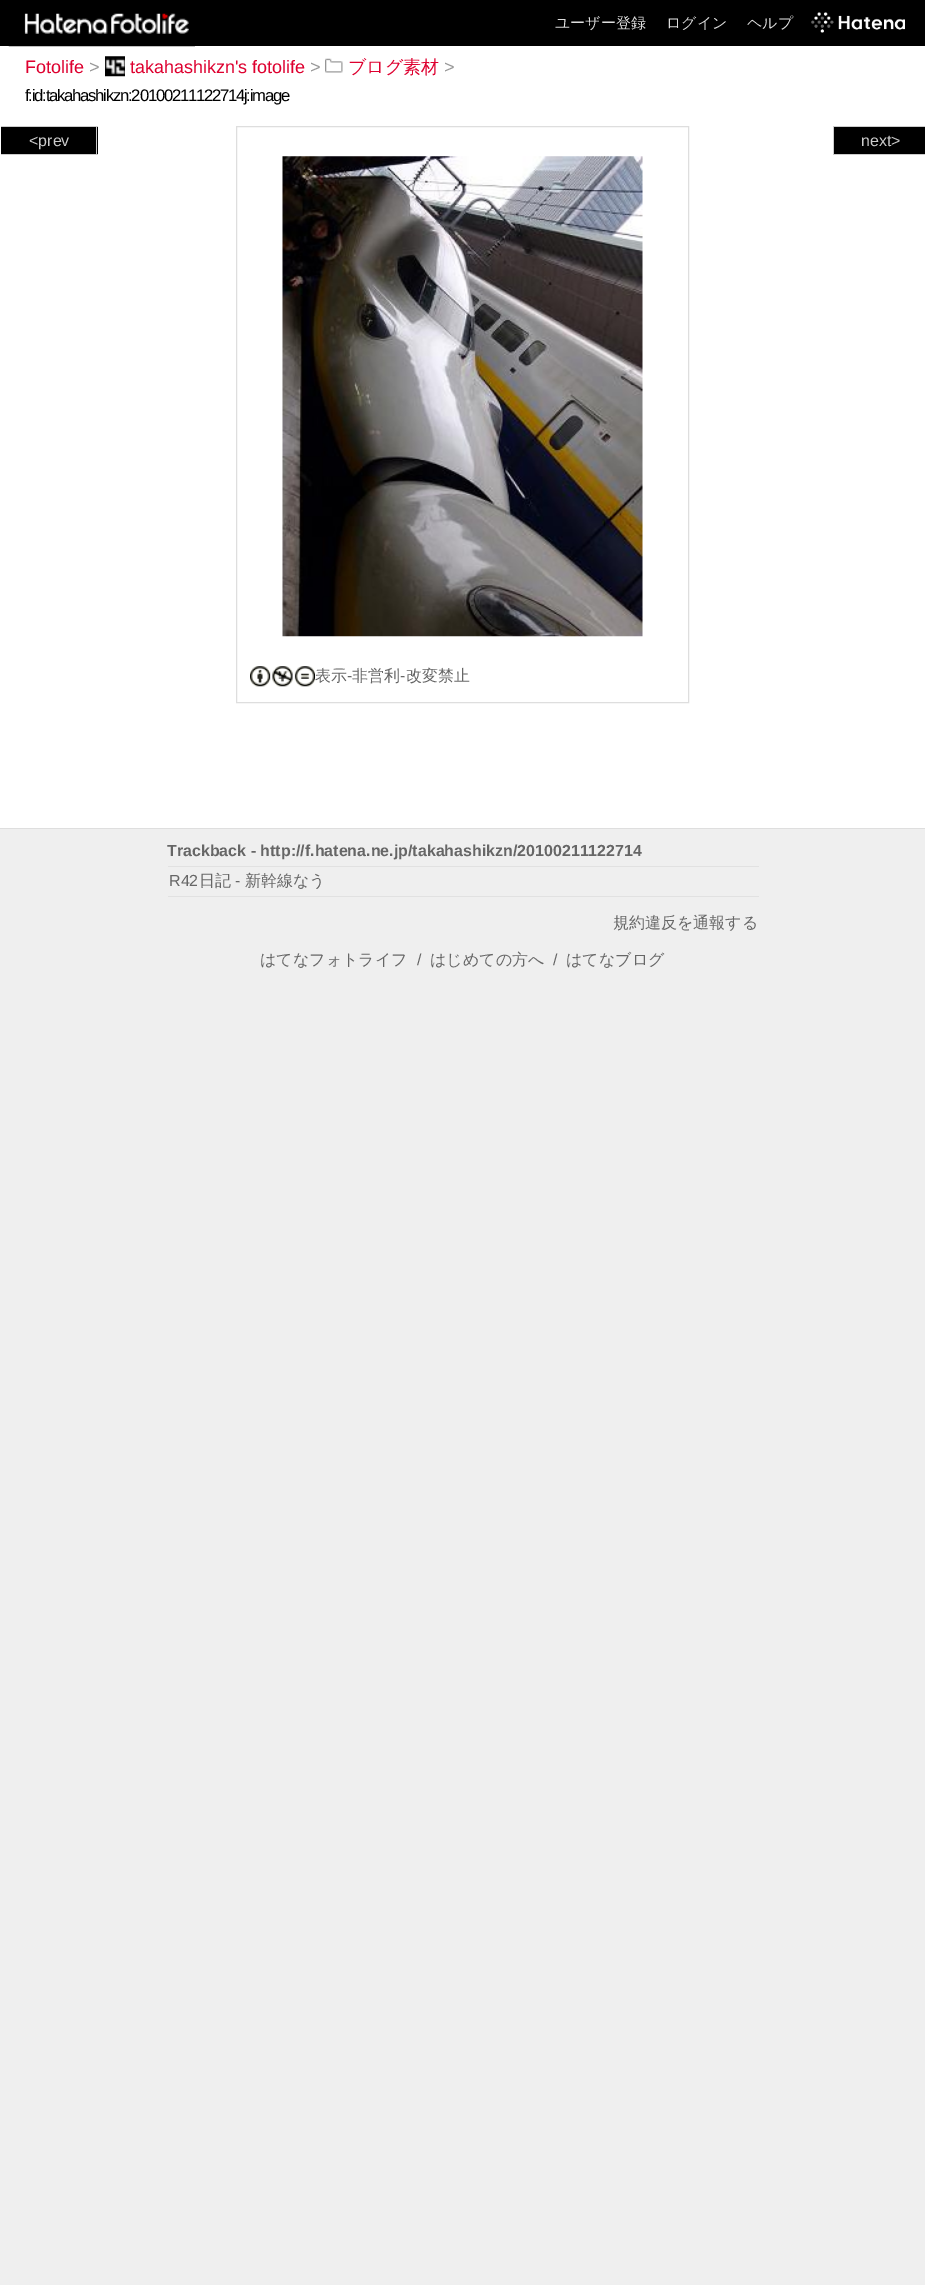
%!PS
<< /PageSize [925 2285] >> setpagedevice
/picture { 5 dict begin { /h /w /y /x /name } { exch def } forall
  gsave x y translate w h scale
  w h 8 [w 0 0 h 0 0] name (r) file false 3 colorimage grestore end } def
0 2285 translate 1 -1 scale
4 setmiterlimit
0.937 setgray
0 0 925 2285 rectfill
0 setgray
0 0 925 46 rectfill
1 setgray
0 46 925 782 rectfill
(img1.rgb) 8 13 104 34 picture
(img2.rgb) 111 13 84 34 picture
/WenQuanYiZenHei-Medium [15 0 0 -15 0 0] selectfont
0.867 setgray
555 28 moveto (ユーザー登録) show
666 28 moveto (ログイン) show
747 28 moveto (ヘルプ) show
(img3.rgb) 811 12 94 21 picture
/LiberationSans-Regular [18 0 0 -18 0 0] selectfont
0.871 0 0.184 setrgbcolor
25 73 moveto (Fotolife) show
0.6 setgray
89 73 moveto (>) show
(img4.rgb) 105 56 20 21 picture
0.871 0 0.184 setrgbcolor
130 73 moveto (takahashikzn's fotolife) show
0.6 setgray
310 73 moveto (>) show
(img5.rgb) 325 58 18 15 picture
/WenQuanYiZenHei-Medium [18 0 0 -18 0 0] selectfont
0.871 0 0.184 setrgbcolor
348 73 moveto (ブログ素材) show
/LiberationSans-Regular [18 0 0 -18 0 0] selectfont
0.6 setgray
444 73 moveto (>) show
/LiberationSans-Regular [16.7 0 0 -16.7 0 0] selectfont
0 setgray
25 101 moveto -1.25 0 (f:id:takahashikzn:20100211122714j:image) ashow
0.871 setgray
0 828 925 1 rectfill
0 setgray
1 127 97 27 rectfill
0.8 setgray
1 126 97 1 rectfill
96 126 1 29 rectfill
1 154 97 1 rectfill
/LiberationSans-Regular [16 0 0 -16 0 0] selectfont
29 146 moveto (<prev) show
0 setgray
834 127 91 27 rectfill
0.8 setgray
833 126 92 1 rectfill
833 154 92 1 rectfill
833 126 1 29 rectfill
861 146 moveto (next>) show
0.871 setgray
236.5 126.5 452 576 rectstroke
(img6.rgb) 282 156 361 481 picture
(img7.rgb) 250 666 65 21 picture
/WenQuanYiZenHei-Medium [16 0 0 -16 0 0] selectfont
0.4 setgray
315 681 moveto (表示) show
/LiberationSans-Regular [16 0 0 -16 0 0] selectfont
347 681 moveto (-) show
/WenQuanYiZenHei-Medium [16 0 0 -16 0 0] selectfont
352 681 moveto (非営利) show
/LiberationSans-Regular [16 0 0 -16 0 0] selectfont
400 681 moveto (-) show
/WenQuanYiZenHei-Medium [16 0 0 -16 0 0] selectfont
406 681 moveto (改変禁止) show
/LiberationSans-Bold [16 0 0 -16 0 0] selectfont
167 856 moveto (Trackback - http://f.hatena.ne.jp/takahashikzn/20100211122714) show
0.882 setgray
168 866 591 1 rectfill
168 896 591 1 rectfill
/LiberationSans-Regular [16 0 0 -16 0 0] selectfont
0.4 setgray
169 886 moveto (R42) show
/WenQuanYiZenHei-Medium [16 0 0 -16 0 0] selectfont
199 886 moveto (日記) show
/LiberationSans-Regular [16 0 0 -16 0 0] selectfont
235 886 moveto (-) show
/WenQuanYiZenHei-Medium [16 0 0 -16 0 0] selectfont
245 886 moveto (新幹線なう) show
613 928 moveto (規約違反を通報する) show
260 965 moveto (はてなフォトライフ) show
/LiberationSans-Regular [16 0 0 -16 0 0] selectfont
417 965 moveto (/) show
/WenQuanYiZenHei-Medium [16 0 0 -16 0 0] selectfont
430 965 moveto (はじめての方へ) show
/LiberationSans-Regular [16 0 0 -16 0 0] selectfont
553 965 moveto (/) show
/WenQuanYiZenHei-Medium [16 0 0 -16 0 0] selectfont
566 965 moveto (はてなブログ) show
showpage
